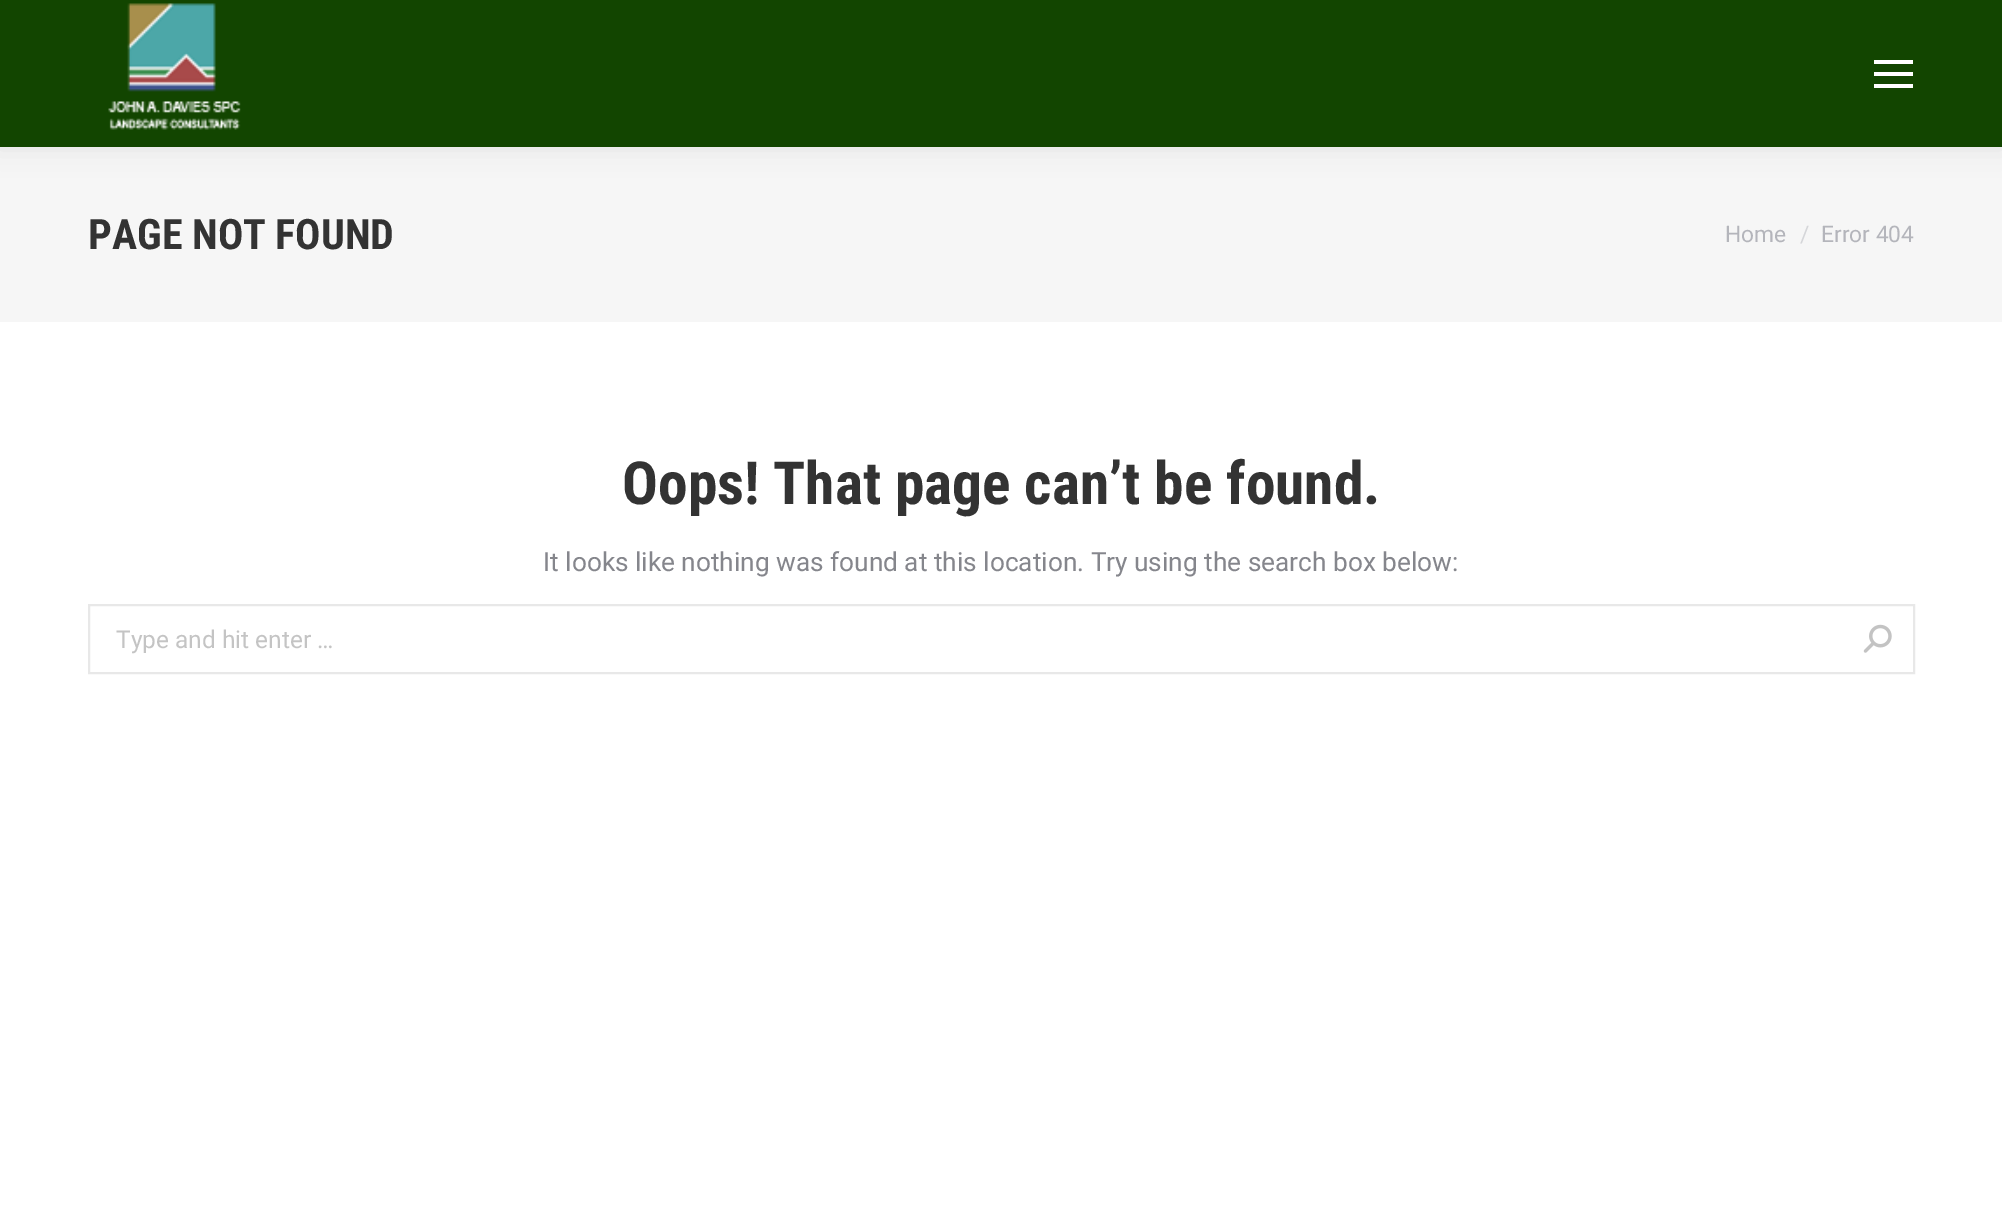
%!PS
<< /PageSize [2002 1209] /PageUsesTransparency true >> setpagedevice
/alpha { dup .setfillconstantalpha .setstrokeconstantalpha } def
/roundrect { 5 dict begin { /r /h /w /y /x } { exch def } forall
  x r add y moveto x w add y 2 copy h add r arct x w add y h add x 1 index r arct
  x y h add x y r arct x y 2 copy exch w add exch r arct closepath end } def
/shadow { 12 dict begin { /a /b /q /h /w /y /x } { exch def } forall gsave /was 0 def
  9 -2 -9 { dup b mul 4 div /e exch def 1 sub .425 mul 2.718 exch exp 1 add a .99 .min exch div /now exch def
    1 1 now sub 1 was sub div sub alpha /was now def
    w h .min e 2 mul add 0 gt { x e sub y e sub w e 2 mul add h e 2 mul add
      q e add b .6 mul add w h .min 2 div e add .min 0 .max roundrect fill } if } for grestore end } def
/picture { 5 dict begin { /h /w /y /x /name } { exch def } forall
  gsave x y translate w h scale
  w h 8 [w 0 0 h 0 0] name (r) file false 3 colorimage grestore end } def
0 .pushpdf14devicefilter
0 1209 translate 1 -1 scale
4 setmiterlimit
1 setgray
0 0 2002 1209 rectfill
0.965 setgray
0 147 2002 175 rectfill
0 setgray
-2 -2 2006 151 0 13 0.07 shadow
0.071 0.271 0 setrgbcolor
0 0 2002 147 rectfill
(img1.rgb) 108 3 133 127 picture
1 setgray
1874 60 39 4 rectfill
1874 72 39 4 rectfill
1874 84 39 4 rectfill
/RobotoCondensed-Bold [42 0 0 -42 0 0] selectfont
0.2 setgray
88 249 moveto (PAGE NOT FOUND) show
/Roboto-Regular [22.75 0 0 -22.75 0 0] selectfont
0.706 0.71 0.733 setrgbcolor
1725 242 moveto (Home) show
0.835 0.839 0.851 setrgbcolor
1800 242 moveto (/) show
0.706 0.71 0.733 setrgbcolor
1821 242 moveto (Error 404) show
/RobotoCondensed-Bold [59.5 0 0 -59.5 0 0] selectfont
0.2 setgray
622 504 moveto (Oops! That page can’t be found.) show
/Roboto-Regular [26.25 0 0 -26.25 0 0] selectfont
0.522 0.525 0.549 setrgbcolor
543 571 moveto (It looks like nothing was found at this location. Try using the search box below:) show
0.91 setgray
2 setlinewidth
89 605 1825 68 rectstroke
/Roboto-Regular [24.5 0 0 -24.5 0 0] selectfont
0.769 setgray
116 648 moveto (Type and hit enter …) show
(img2.rgb) 1863 624 29 29 picture
.poppdf14devicefilter showpage
